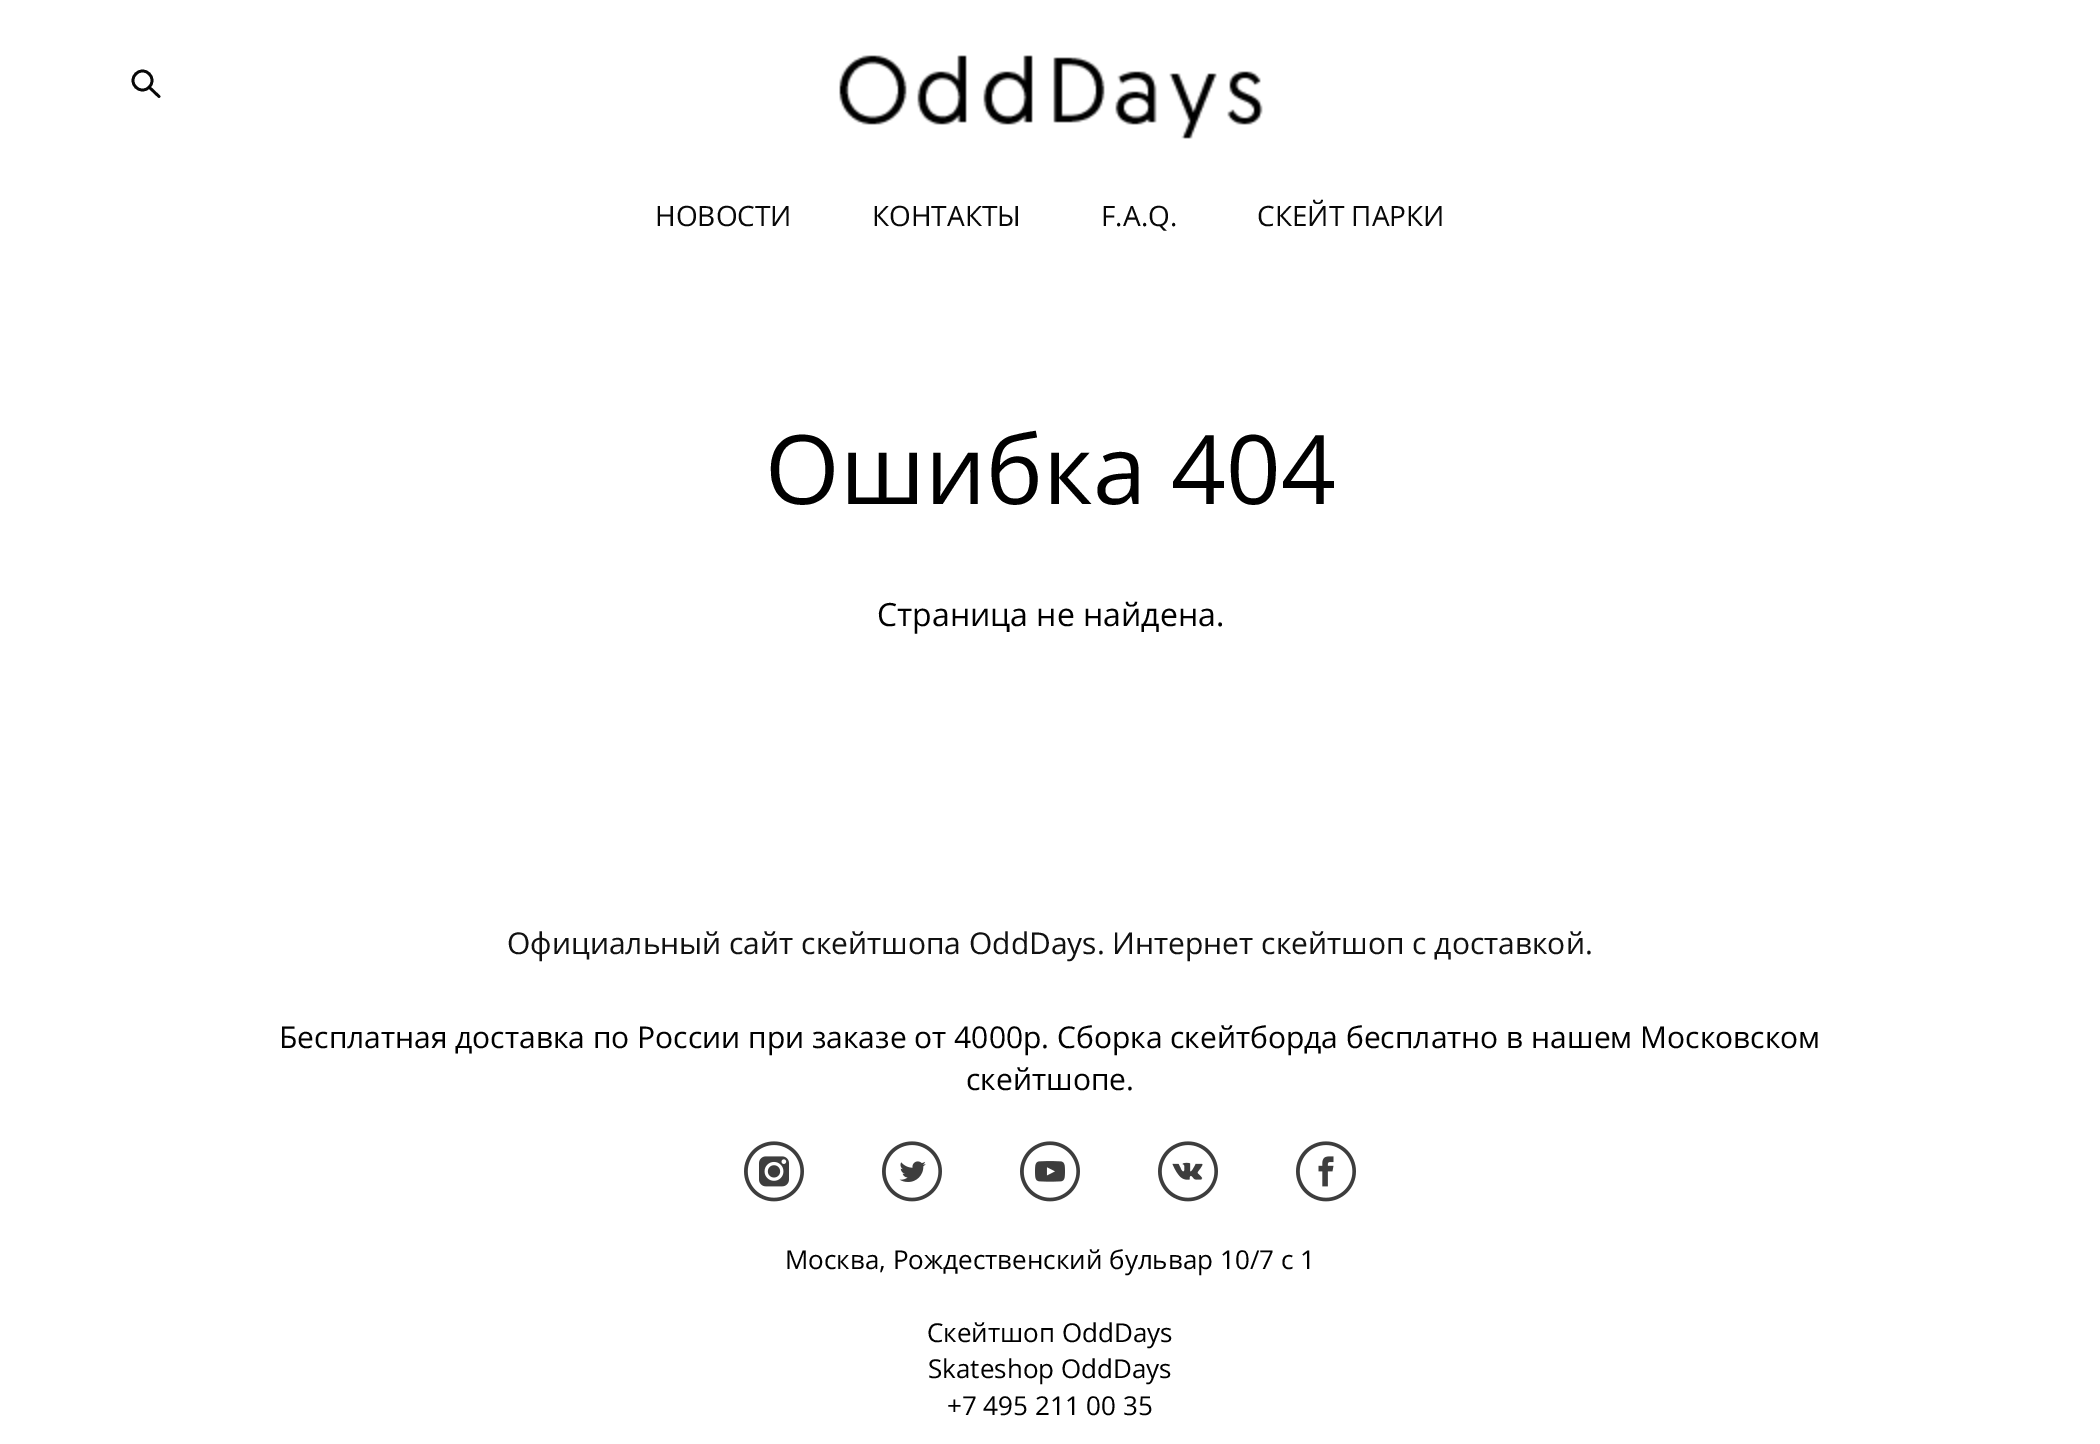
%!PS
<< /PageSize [2100 1444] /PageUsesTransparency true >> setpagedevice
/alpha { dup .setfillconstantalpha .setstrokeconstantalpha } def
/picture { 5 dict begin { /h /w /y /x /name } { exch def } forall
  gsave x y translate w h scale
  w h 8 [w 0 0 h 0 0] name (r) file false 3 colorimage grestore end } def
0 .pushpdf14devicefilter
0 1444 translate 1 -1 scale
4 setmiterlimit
1 setgray
0 0 2100 1444 rectfill
0.031 setgray
2.7 setlinewidth
newpath 142.5 80.5 9.5 0 360 arc closepath stroke
0.97 alpha
0 setgray
1 setlinecap
1 setlinejoin
newpath 149.5 87.5 moveto 159 96.5 lineto stroke
1 alpha
(img1.rgb) 839 55 424 84 picture
/OpenSans-Regular [28 0 0 -28 0 0] selectfont
0.031 setgray
655 226 moveto (НОВОСТИ) show
872 226 moveto (КОНТАКТЫ) show
1101 226 moveto (F.A.Q.) show
1257 226 moveto (СКЕЙТ ПАРКИ) show
/OpenSans-Regular [96 0 0 -96 0 0] selectfont
0 setgray
765 504 moveto (Ошибка 404) show
/OpenSans-Regular [32 0 0 -32 0 0] selectfont
877 626 moveto (Страница не найдена.) show
/OpenSans-Regular [30 0 0 -30 0 0] selectfont
0.067 setgray
507 954 moveto (Официальный сайт скейтшопа OddDays. Интернет скейтшоп с доставкой.) show
0 setgray
279 1048 moveto (Бесплатная доставка по России при заказе от 4000р. Сборка скейтборда бесплатно в нашем Московском) show
966 1090 moveto (скейтшопе.) show
(img2.rgb) 744 1141 60 61 picture
(img3.rgb) 882 1141 60 61 picture
(img4.rgb) 1020 1141 60 61 picture
(img5.rgb) 1158 1141 60 61 picture
(img6.rgb) 1296 1141 60 61 picture
/OpenSans-Regular [26 0 0 -26 0 0] selectfont
785 1269 moveto (Москва, Рождественский бульвар 10/7 с 1) show
927 1342 moveto (Скейтшоп OddDays) show
928 1378 moveto (Skateshop OddDays) show
947 1415 moveto (+7 495 211 00 35) show
.poppdf14devicefilter showpage
